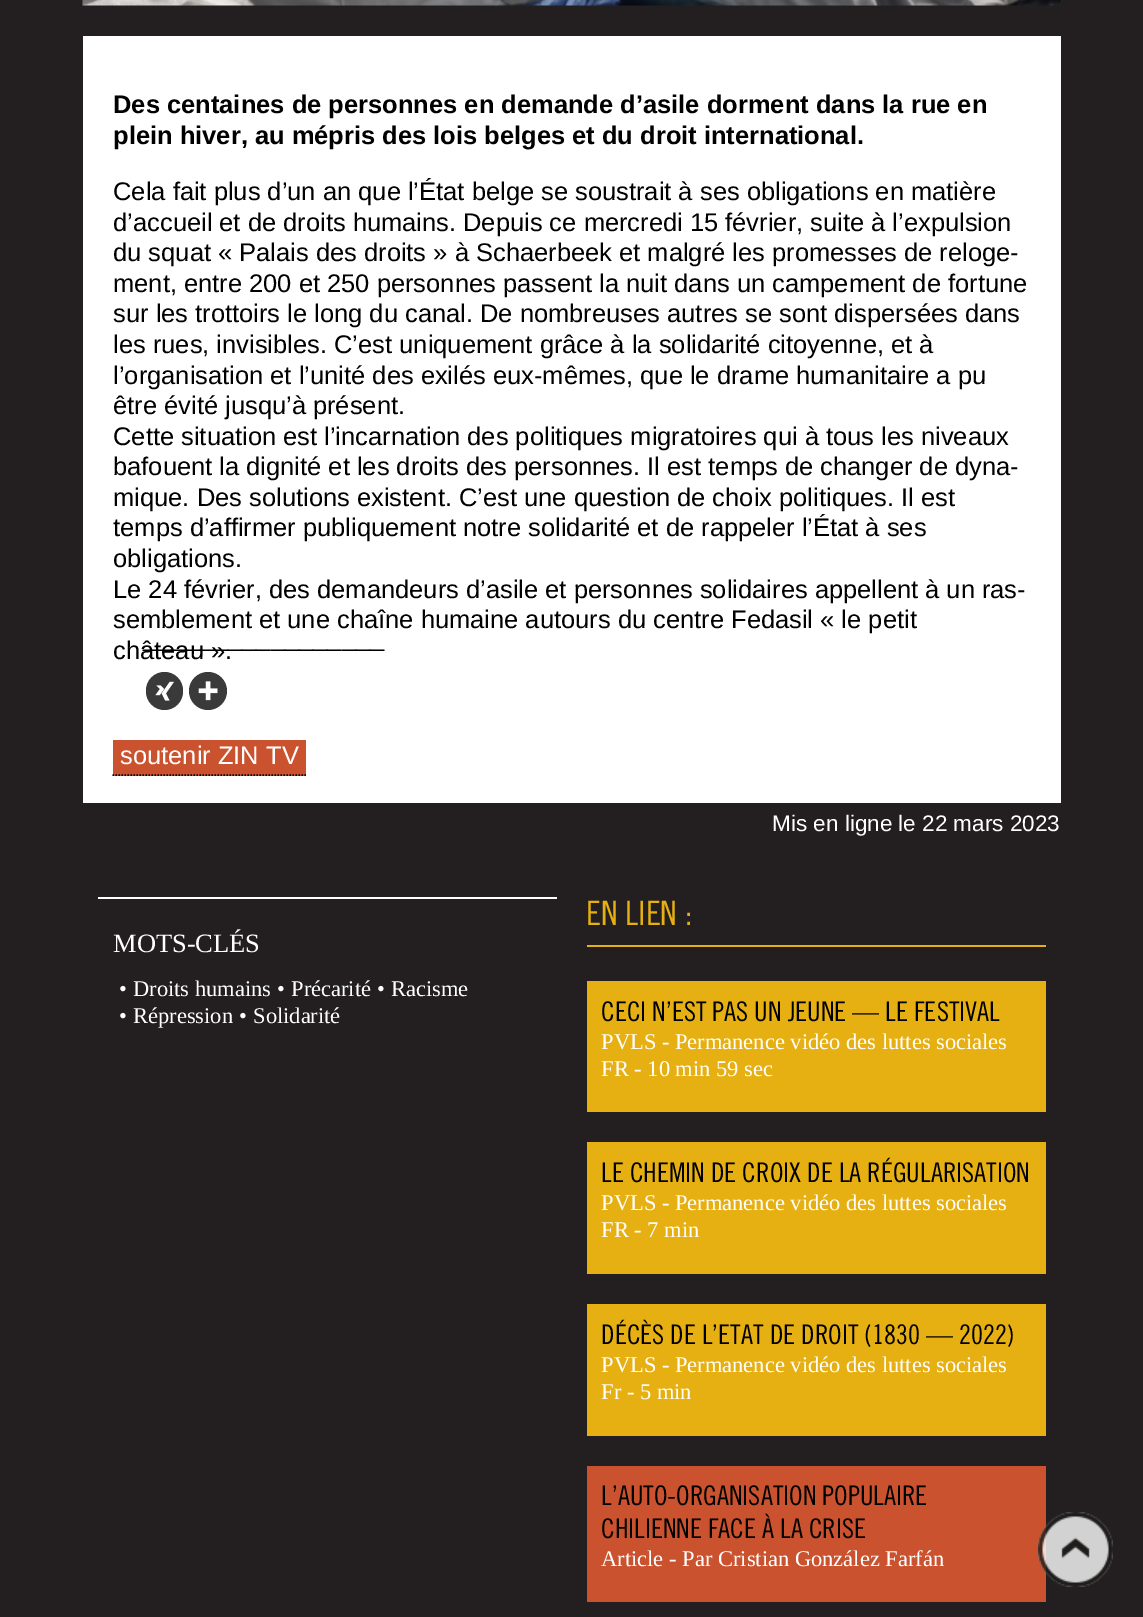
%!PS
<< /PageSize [1143 1617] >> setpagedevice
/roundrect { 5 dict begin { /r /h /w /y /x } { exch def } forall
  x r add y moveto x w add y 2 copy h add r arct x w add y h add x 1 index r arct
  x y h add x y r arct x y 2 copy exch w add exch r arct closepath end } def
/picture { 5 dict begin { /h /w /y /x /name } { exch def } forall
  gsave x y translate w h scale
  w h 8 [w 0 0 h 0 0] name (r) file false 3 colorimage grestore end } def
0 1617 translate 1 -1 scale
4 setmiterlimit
0.137 0.122 0.125 setrgbcolor
0 0 1143 1617 rectfill
(img1.rgb) 82 0 979 6 picture
1 setgray
83 36 978 767 rectfill
/LiberationSans-Bold [25.5 0 0 -25.5 0 0] selectfont
0 setgray
113 113 moveto (Des centaines de personnes en demande d’asile dorment dans la rue en) show
113 144 moveto (plein hiver, au mépris des lois belges et du droit international.) show
/LiberationSans-Regular [25.5 0 0 -25.5 0 0] selectfont
113 200 moveto (Cela fait plus d’un an que l’État belge se soustrait à ses obligations en matière) show
113 231 moveto (d’accueil et de droits humains. Depuis ce mercredi 15 février, suite à l’expulsion) show
113 261 moveto (du squat « Palais des droits » à Schaerbeek et malgré les promesses de reloge-) show
113 292 moveto (ment, entre 200 et 250 personnes passent la nuit dans un campement de fortune) show
113 322 moveto (sur les trottoirs le long du canal. De nombreuses autres se sont dispersées dans) show
113 353 moveto (les rues, invisibles. C’est uniquement grâce à la solidarité citoyenne, et à) show
113 384 moveto (l’organisation et l’unité des exilés eux-mêmes, que le drame humanitaire a pu) show
113 414 moveto (être évité jusqu’à présent.) show
113 445 moveto (Cette situation est l’incarnation des politiques migratoires qui à tous les niveaux) show
113 475 moveto (bafouent la dignité et les droits des personnes. Il est temps de changer de dyna-) show
113 506 moveto (mique. Des solutions existent. C’est une question de choix politiques. Il est) show
113 536 moveto (temps d’affirmer publiquement notre solidarité et de rappeler l’État à ses) show
113 567 moveto (obligations.) show
113 598 moveto (Le 24 février, des demandeurs d’asile et personnes solidaires appellent à un ras-) show
113 628 moveto (semblement et une chaîne humaine autours du centre Fedasil « le petit) show
113 659 moveto (château ».) show
143 646 moveto (_________________) show
0.227 setgray
146 672 37 38 18.5 roundrect fill
(img2.rgb) 155 681 19 20 picture
newpath 208 691 19 0 360 arc closepath fill
(img3.rgb) 198 681 20 20 picture
0.792 0.322 0.18 setrgbcolor
113 740 193 36 rectfill
1 setgray
120 764 moveto (soutenir ZIN TV) show
0 setgray
1.5 setlinewidth
[1.5 1.5] 0 setdash
newpath 112.5 775 moveto 306 775 lineto stroke
/LiberationSans-Regular [22.5 0 0 -22.5 0 0] selectfont
1 setgray
772 831 moveto (Mis en ligne le 22 mars 2023) show
98 897 459 2 rectfill
/LiberationSerif-Regular [26.5 0 0 -26.5 0 0] selectfont
113 952 moveto (MOTS-CLÉS) show
/LiberationSerif-Regular [22.5 0 0 -22.5 0 0] selectfont
119 996 moveto (•) show
133 996 moveto (Droits humains) show
277 996 moveto (•) show
291 996 moveto (Précarité) show
377 996 moveto (•) show
391 996 moveto (Racisme) show
119 1023 moveto (•) show
133 1023 moveto (Répression) show
239 1023 moveto (•) show
253 1023 moveto (Solidarité) show
0.906 0.69 0.071 setrgbcolor
587 945 459 2 rectfill
/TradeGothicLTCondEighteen-Medium [33.5 0 0 -33.5 0 0] selectfont
586 925 moveto (EN LIEN :) show
587 981 459 131 rectfill
/TradeGothicLTCondEighteen-Medium [27.1 0 0 -27.1 0 0] selectfont
0 setgray
601 1021 moveto (CECI N’EST PAS UN JEUNE — LE FESTIVAL) show
/LiberationSerif-Regular [22.5 0 0 -22.5 0 0] selectfont
1 setgray
601 1049 moveto (PVLS - Permanence vidéo des luttes sociales) show
601 1076 moveto (FR - 10 min 59 sec) show
0.906 0.69 0.071 setrgbcolor
587 1142 459 132 rectfill
/TradeGothicLTCondEighteen-Medium [27.1 0 0 -27.1 0 0] selectfont
0 setgray
601 1182 moveto (LE CHEMIN DE CROIX DE LA RÉGULARISATION) show
/LiberationSerif-Regular [22.5 0 0 -22.5 0 0] selectfont
1 setgray
601 1210 moveto (PVLS - Permanence vidéo des luttes sociales) show
601 1237 moveto (FR - 7 min) show
0.906 0.69 0.071 setrgbcolor
587 1304 459 132 rectfill
/TradeGothicLTCondEighteen-Medium [27.1 0 0 -27.1 0 0] selectfont
0 setgray
601 1344 moveto (DÉCÈS DE L’ETAT DE DROIT \(1830 — 2022\)) show
/LiberationSerif-Regular [22.5 0 0 -22.5 0 0] selectfont
1 setgray
601 1372 moveto (PVLS - Permanence vidéo des luttes sociales) show
601 1399 moveto (Fr - 5 min) show
0.792 0.322 0.18 setrgbcolor
587 1466 459 136 rectfill
/TradeGothicLTCondEighteen-Medium [27.1 0 0 -27.1 0 0] selectfont
0 setgray
601 1505 moveto (L’AUTO-ORGANISATION POPULAIRE) show
601 1538 moveto (CHILIENNE FACE À LA CRISE) show
/LiberationSerif-Regular [22.5 0 0 -22.5 0 0] selectfont
1 setgray
601 1566 moveto (Article - Par Cristian González Farfán) show
(img4.rgb) 1038 1512 75 75 picture
showpage
